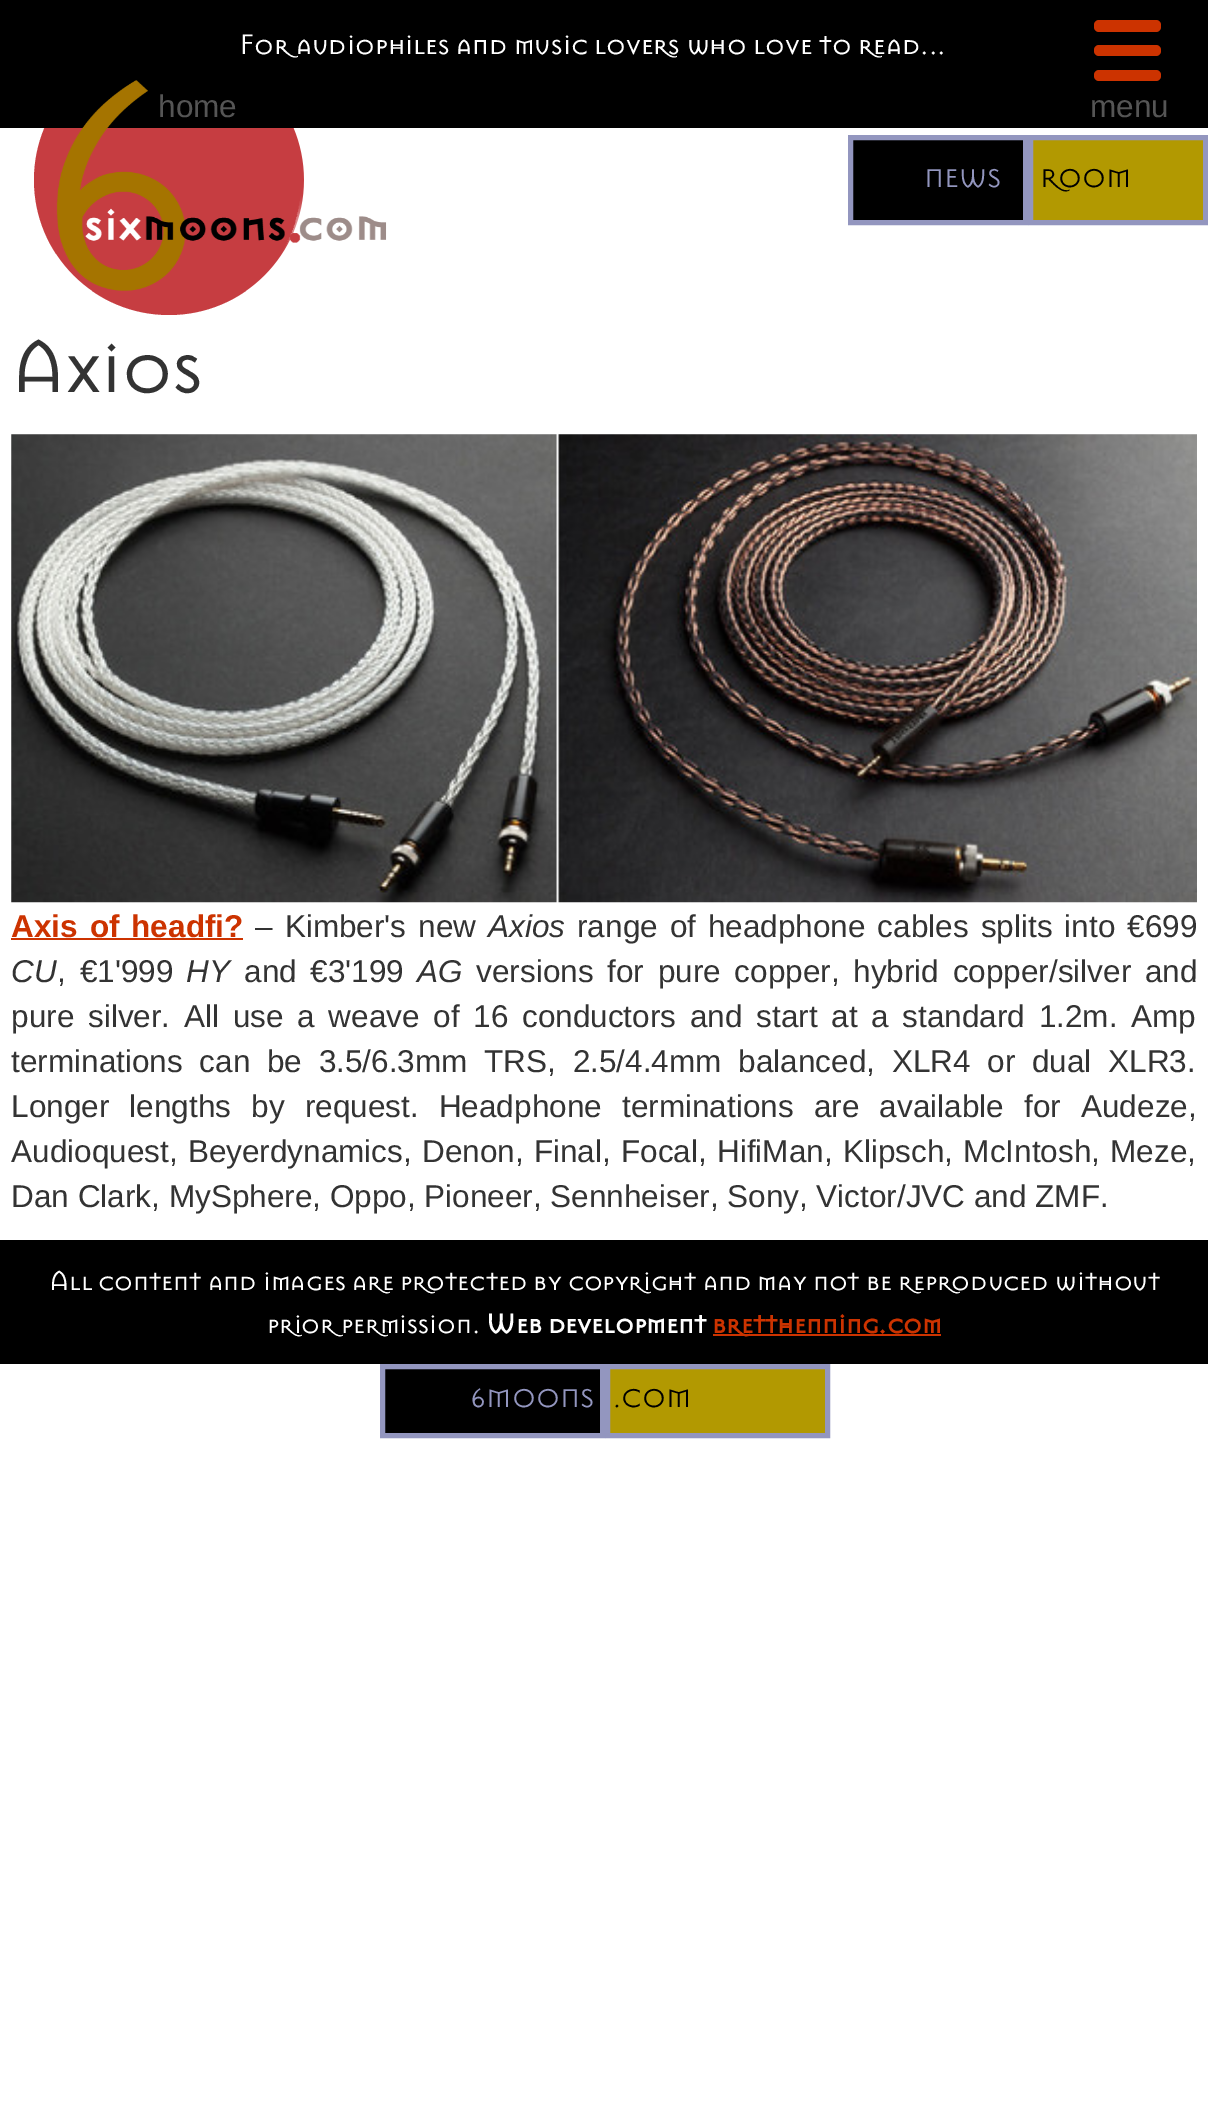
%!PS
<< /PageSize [1208 2106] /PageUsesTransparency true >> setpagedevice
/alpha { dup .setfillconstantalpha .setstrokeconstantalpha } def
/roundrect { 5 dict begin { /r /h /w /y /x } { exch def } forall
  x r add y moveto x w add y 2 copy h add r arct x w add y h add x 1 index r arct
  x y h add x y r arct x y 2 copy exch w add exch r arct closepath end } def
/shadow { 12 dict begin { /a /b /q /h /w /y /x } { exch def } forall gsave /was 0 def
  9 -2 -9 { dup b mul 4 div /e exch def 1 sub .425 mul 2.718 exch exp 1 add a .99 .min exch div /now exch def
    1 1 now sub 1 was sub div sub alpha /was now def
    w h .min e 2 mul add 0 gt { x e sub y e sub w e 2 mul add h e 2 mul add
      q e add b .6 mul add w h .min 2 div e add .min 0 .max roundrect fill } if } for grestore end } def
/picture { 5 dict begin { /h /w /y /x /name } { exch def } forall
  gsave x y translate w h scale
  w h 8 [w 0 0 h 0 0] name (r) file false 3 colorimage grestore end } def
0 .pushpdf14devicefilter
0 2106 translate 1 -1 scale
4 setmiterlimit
1 setgray
0 0 1208 2106 rectfill
(img2.rgb) 11 434 1186 469 picture
5 16 328 328 164 37 1 shadow
0.776 0.239 0.255 setrgbcolor
newpath 169 180 135 0 360 arc closepath fill
0 setgray
0 0 1208 128 rectfill
/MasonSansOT-Regular [31.5 0 0 -31.5 0 0] selectfont
1 setgray
239 54 moveto (For audiophiles and music lovers who love to read...) show
(img1.rgb) 56 80 331 211 picture
/LiberationSans-Regular [31.5 0 0 -31.5 0 0] selectfont
0.333 setgray
158 117 moveto (home) show
0.8 0.2 0 setrgbcolor
1094 20 67 12 5 roundrect fill
1094 45 67 11 5 roundrect fill
1094 70 67 11 5 roundrect fill
0.333 setgray
1090 117 moveto (menu) show
0 setgray
newpath 850.5 137.5 moveto 1025.5 137.5 lineto 1025.5 222.5 lineto 850.5 222.5 lineto closepath gsave fill grestore
0.576 0.588 0.749 setrgbcolor
5 setlinewidth
stroke
/MasonSansOT-Regular [28.5 0 0 -28.5 0 0] selectfont
924 187 moveto (NEWS) show
0.698 0.6 0.004 setrgbcolor
newpath 1030.5 137.5 moveto 1205.5 137.5 lineto 1205.5 222.5 lineto 1030.5 222.5 lineto closepath gsave fill grestore
0.576 0.588 0.749 setrgbcolor
stroke
0 setgray
1040 187 moveto (ROOM) show
/MasonSansOT-Regular [81 0 0 -81 0 0] selectfont
0.2 setgray
11 392 moveto (Axios) show
/LiberationSans-Bold [31.5 0 0 -31.5 0 0] selectfont
0.8 0.2 0 setrgbcolor
11 937 moveto 3.25 0 32 (Axis of headfi?) widthshow
11 938 232 2 rectfill
/LiberationSans-Regular [31.5 0 0 -31.5 0 0] selectfont
0.2 setgray
255 937 moveto 3.25 0 32 (– Kimber's new) widthshow
/LiberationSans-Italic [31.5 0 0 -31.5 0 0] selectfont
488 937 moveto (Axios) show
/LiberationSans-Regular [31.5 0 0 -31.5 0 0] selectfont
577 937 moveto 3.25 0 32 (range of headphone cables splits into €699) widthshow
/LiberationSans-Italic [31.5 0 0 -31.5 0 0] selectfont
11 982 moveto (CU) show
/LiberationSans-Regular [31.5 0 0 -31.5 0 0] selectfont
57 982 moveto 5 0 32 (, €1'999) widthshow
/LiberationSans-Italic [31.5 0 0 -31.5 0 0] selectfont
186 982 moveto (HY) show
/LiberationSans-Regular [31.5 0 0 -31.5 0 0] selectfont
244 982 moveto 5 0 32 (and €3'199) widthshow
/LiberationSans-Italic [31.5 0 0 -31.5 0 0] selectfont
417 982 moveto (AG) show
/LiberationSans-Regular [31.5 0 0 -31.5 0 0] selectfont
476 982 moveto 5 0 32 (versions for pure copper, hybrid copper/silver and) widthshow
11 1027 moveto 5 0 32 (pure silver. All use a weave of 16 conductors and start at a standard 1.2m. Amp) widthshow
11 1072 moveto 8 0 32 (terminations can be 3.5/6.3mm TRS, 2.5/4.4mm balanced, XLR4 or dual XLR3.) widthshow
11 1117 moveto 11.5 0 32 (Longer lengths by request. Headphone terminations are available for Audeze,) widthshow
11 1162 moveto 1.5 0 32 (Audioquest, Beyerdynamics, Denon, Final, Focal, HifiMan, Klipsch, McIntosh, Meze,) widthshow
11 1207 moveto (Dan Clark, MySphere, Oppo, Pioneer, Sennheiser, Sony, Victor/JVC and ZMF.) show
0 setgray
0 1240 1208 124 rectfill
/MasonSansOT-Regular [30 0 0 -30 0 0] selectfont
1 setgray
49 1290 moveto (All content and images are protected by copyright and may not be reproduced without) show
267 1333 moveto (prior permission.) show
/MasonSansOT-Bold [30 0 0 -30 0 0] selectfont
486 1333 moveto (Web development) show
0.8 0.2 0 setrgbcolor
713 1334 228 2 rectfill
712 1333 moveto (bretthenning.com) show
0 setgray
newpath 382.5 1366.5 moveto 602.5 1366.5 lineto 602.5 1435.5 lineto 382.5 1435.5 lineto closepath gsave fill grestore
0.576 0.588 0.749 setrgbcolor
stroke
/MasonSansOT-Regular [28.5 0 0 -28.5 0 0] selectfont
470 1407 moveto (6MOONS) show
0.698 0.6 0.004 setrgbcolor
newpath 607.5 1366.5 moveto 827.5 1366.5 lineto 827.5 1435.5 lineto 607.5 1435.5 lineto closepath gsave fill grestore
0.576 0.588 0.749 setrgbcolor
stroke
0 setgray
613 1407 moveto (.COM) show
.poppdf14devicefilter showpage
